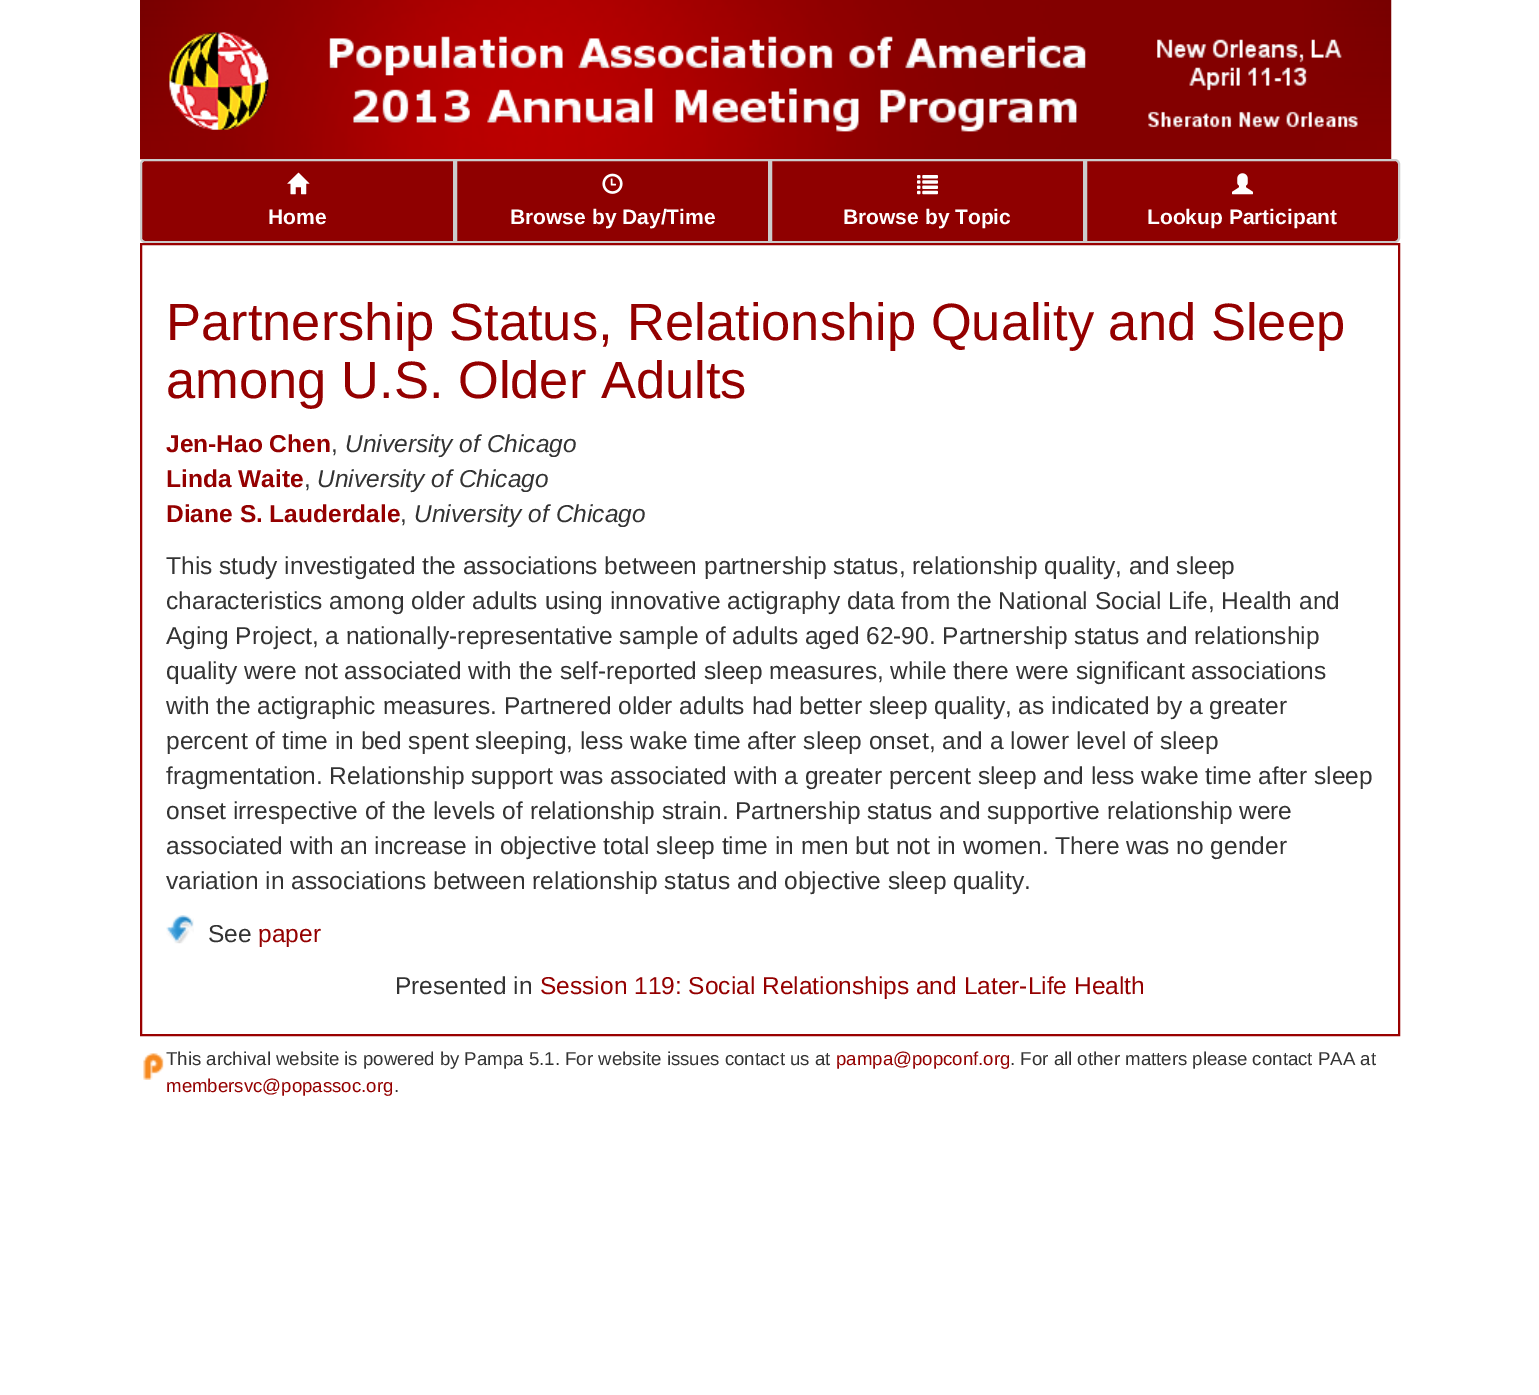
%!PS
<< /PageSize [1539 1395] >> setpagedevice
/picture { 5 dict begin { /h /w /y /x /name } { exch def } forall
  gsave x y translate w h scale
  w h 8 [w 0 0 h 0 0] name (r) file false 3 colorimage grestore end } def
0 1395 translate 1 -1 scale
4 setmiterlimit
1 setgray
0 0 1539 1395 rectfill
(img1.rgb) 140 0 1252 160 picture
0.561 0 0 setrgbcolor
newpath 145 160 moveto 454 160 lineto 454 242 lineto 145 242 lineto 143 242 141 240 141 238 curveto 141 164 lineto 141 162 143 160 145 160 curveto closepath gsave fill grestore
0.8 setgray
2 setlinewidth
stroke
(img2.rgb) 287 172 23 23 picture
/LiberationSans-Bold [21 0 0 -21 0 0] selectfont
1 setgray
268 224 moveto (Home) show
0.561 0 0 setrgbcolor
newpath 456 160 moveto 769 160 lineto 769 242 lineto 456 242 lineto closepath gsave fill grestore
0.8 setgray
stroke
(img3.rgb) 602 173 21 21 picture
1 setgray
510 224 moveto (Browse by Day/Time) show
0.561 0 0 setrgbcolor
newpath 771 160 moveto 1084 160 lineto 1084 242 lineto 771 242 lineto closepath gsave fill grestore
0.8 setgray
stroke
(img4.rgb) 917 175 21 20 picture
1 setgray
843 224 moveto (Browse by Topic) show
0.561 0 0 setrgbcolor
newpath 1086 160 moveto 1395 160 lineto 1397 160 1399 162 1399 164 curveto 1399 238 lineto 1399 240 1397 242 1395 242 curveto 1086 242 lineto closepath gsave fill grestore
0.8 setgray
stroke
(img5.rgb) 1232 173 21 22 picture
1 setgray
1147 224 moveto (Lookup Participant) show
0.6 0 0 setrgbcolor
141 244 1258 791 rectstroke
/LiberationSans-Regular [52.5 0 0 -52.5 0 0] selectfont
0.58 0 0 setrgbcolor
166 340 moveto (Partnership Status, Relationship Quality and Sleep) show
166 398 moveto (among U.S. Older Adults) show
/LiberationSans-Bold [24.5 0 0 -24.5 0 0] selectfont
166 452 moveto (Jen-Hao Chen) show
/LiberationSans-Regular [24.5 0 0 -24.5 0 0] selectfont
0.2 setgray
331 452 moveto (,) show
/LiberationSans-Italic [24.5 0 0 -24.5 0 0] selectfont
345 452 moveto (University of Chicago) show
/LiberationSans-Bold [24.5 0 0 -24.5 0 0] selectfont
0.58 0 0 setrgbcolor
166 487 moveto (Linda Waite) show
/LiberationSans-Regular [24.5 0 0 -24.5 0 0] selectfont
0.2 setgray
304 487 moveto (,) show
/LiberationSans-Italic [24.5 0 0 -24.5 0 0] selectfont
317 487 moveto (University of Chicago) show
/LiberationSans-Bold [24.5 0 0 -24.5 0 0] selectfont
0.58 0 0 setrgbcolor
166 522 moveto (Diane S. Lauderdale) show
/LiberationSans-Regular [24.5 0 0 -24.5 0 0] selectfont
0.2 setgray
400 522 moveto (,) show
/LiberationSans-Italic [24.5 0 0 -24.5 0 0] selectfont
414 522 moveto (University of Chicago) show
/LiberationSans-Regular [24.5 0 0 -24.5 0 0] selectfont
166 574 moveto (This study investigated the associations between partnership status, relationship quality, and sleep) show
166 609 moveto (characteristics among older adults using innovative actigraphy data from the National Social Life, Health and) show
166 644 moveto (Aging Project, a nationally-representative sample of adults aged 62-90. Partnership status and relationship) show
166 679 moveto (quality were not associated with the self-reported sleep measures, while there were significant associations) show
166 714 moveto (with the actigraphic measures. Partnered older adults had better sleep quality, as indicated by a greater) show
166 749 moveto (percent of time in bed spent sleeping, less wake time after sleep onset, and a lower level of sleep) show
166 784 moveto (fragmentation. Relationship support was associated with a greater percent sleep and less wake time after sleep) show
166 819 moveto (onset irrespective of the levels of relationship strain. Partnership status and supportive relationship were) show
166 854 moveto (associated with an increase in objective total sleep time in men but not in women. There was no gender) show
166 889 moveto (variation in associations between relationship status and objective sleep quality.) show
(img6.rgb) 166 915 28 29 picture
208 942 moveto (See) show
0.58 0 0 setrgbcolor
258 942 moveto (paper) show
0.2 setgray
395 994 moveto (Presented in) show
0.58 0 0 setrgbcolor
540 994 moveto (Session 119: Social Relationships and Later-Life Health) show
(img7.rgb) 143 1053 21 27 picture
/LiberationSans-Regular [18.65 0 0 -18.65 0 0] selectfont
0.2 setgray
166 1065 moveto (This archival website is powered by Pampa 5.1. For website issues contact us at) show
0.58 0 0 setrgbcolor
836 1065 moveto (pampa@popconf.org) show
0.2 setgray
1010 1065 moveto (. For all other matters please contact PAA at) show
0.58 0 0 setrgbcolor
166 1092 moveto (membersvc@popassoc.org) show
0.2 setgray
394 1092 moveto (.) show
showpage
